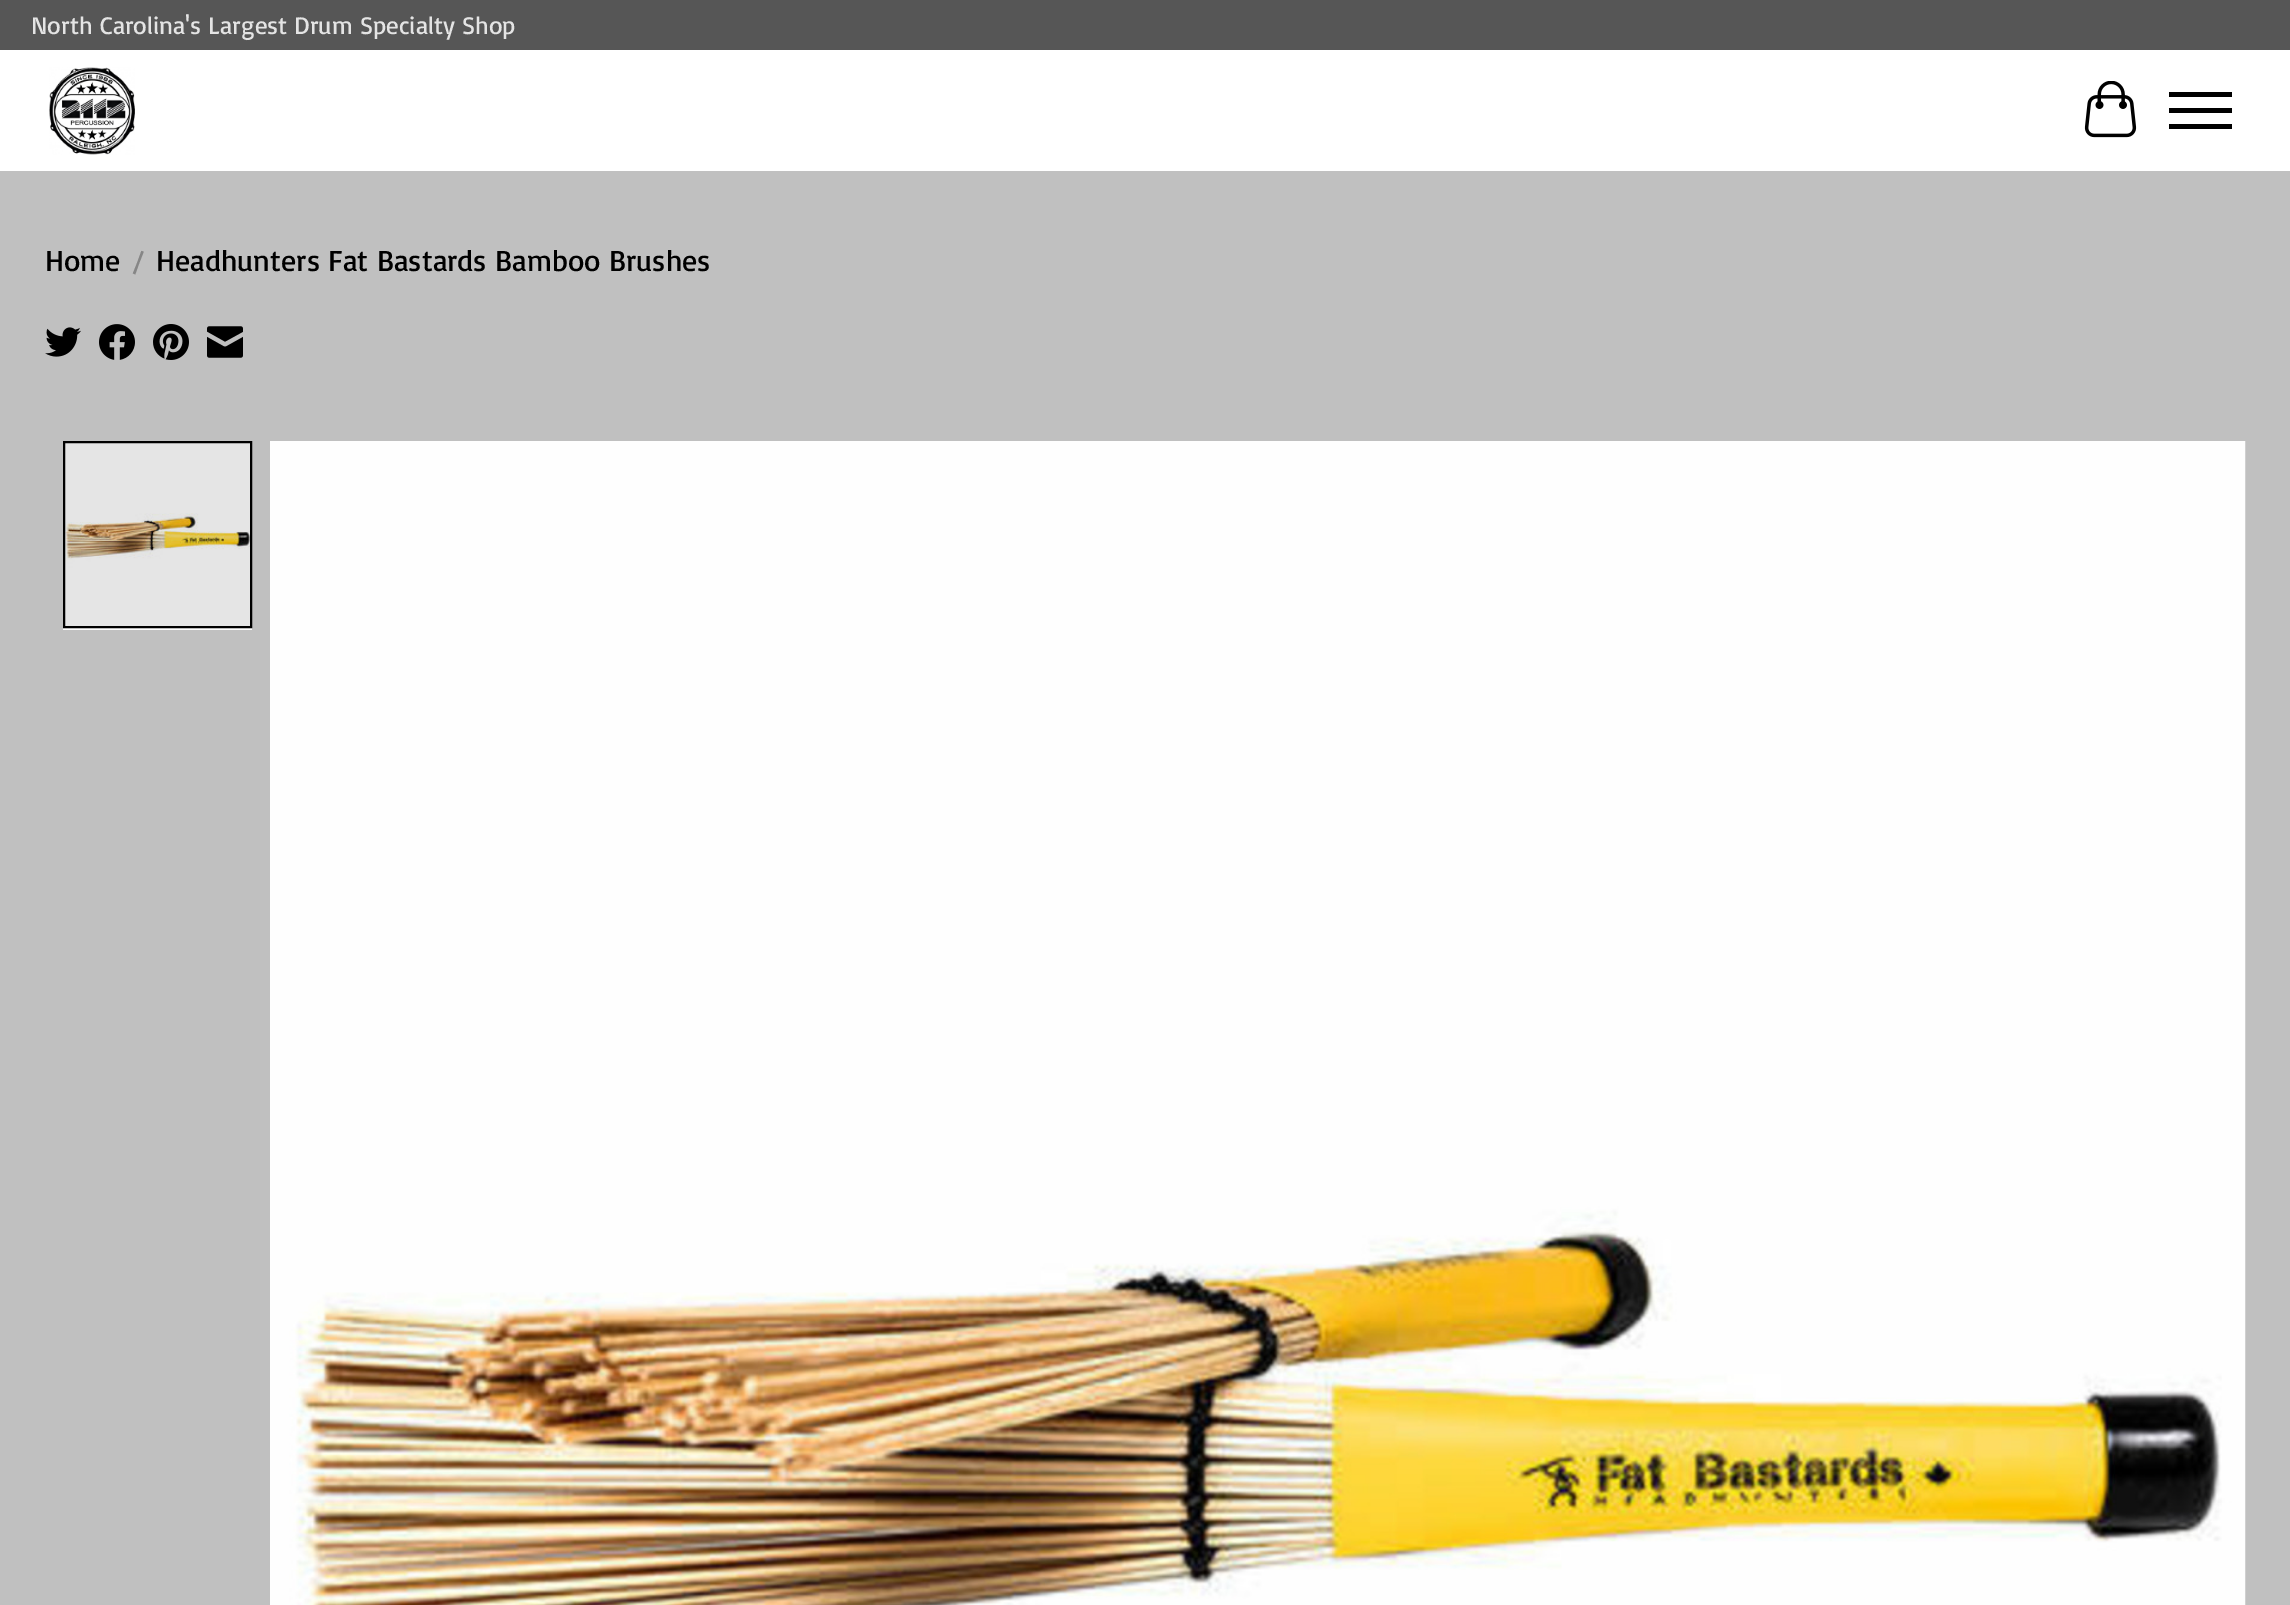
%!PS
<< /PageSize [2290 1605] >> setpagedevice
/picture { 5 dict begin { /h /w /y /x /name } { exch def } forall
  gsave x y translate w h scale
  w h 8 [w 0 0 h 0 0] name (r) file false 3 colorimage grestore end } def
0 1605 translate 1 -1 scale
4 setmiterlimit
0.753 setgray
0 0 2290 1605 rectfill
1 setgray
0 50 2290 121 rectfill
0.337 setgray
0 0 2290 50 rectfill
/Basic-Regular [25 0 0 -25 0 0] selectfont
0.894 setgray
31 34 moveto (North Carolina's Largest Drum Specialty Shop) show
(img1.rgb) 49 67 86 88 picture
(img2.rgb) 2084 81 53 57 picture
0 setgray
2169 108 63 5 rectfill
2169 92 63 5 rectfill
2169 124 63 5 rectfill
/Basic-Regular [30 0 0 -30 0 0] selectfont
45 271 moveto (Home) show
0.525 setgray
132 271 moveto (/) show
0 setgray
156 271 moveto (Headhunters Fat Bastards Bamboo Brushes) show
(img3.rgb) 45 327 36 30 picture
(img4.rgb) 99 324 36 36 picture
(img5.rgb) 153 324 36 36 picture
(img6.rgb) 207 326 36 32 picture
(img7.rgb) 63 443 189 187 picture
2 setlinewidth
64 442 187 185 rectstroke
(img8.rgb) 270 441 1976 1164 picture
showpage
